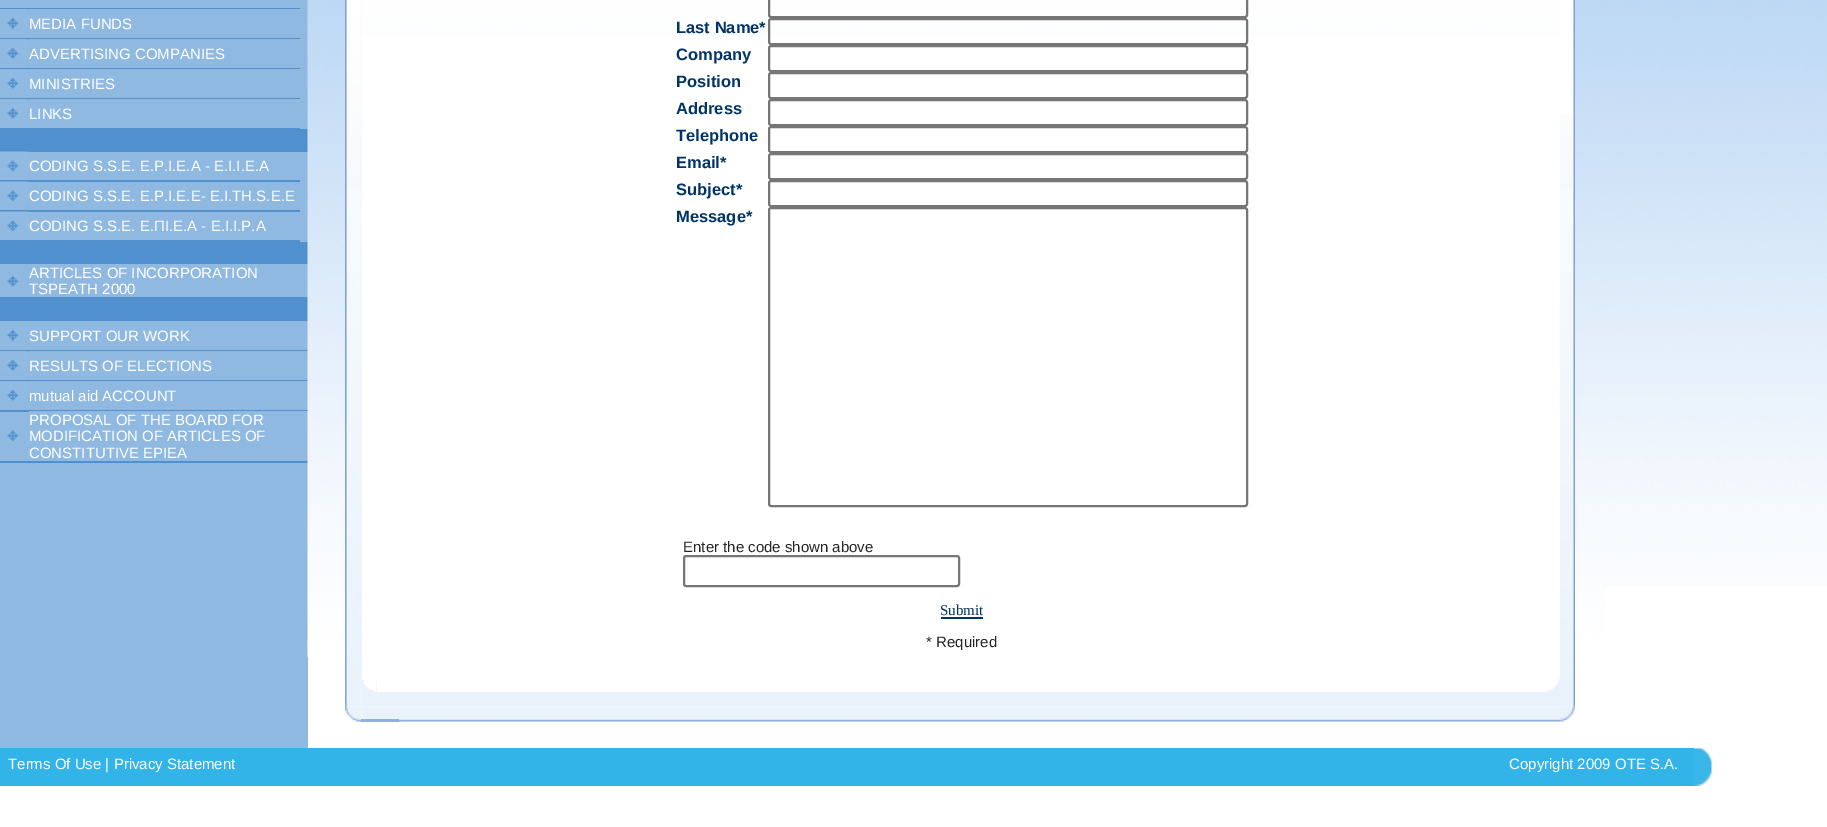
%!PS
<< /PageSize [1827 827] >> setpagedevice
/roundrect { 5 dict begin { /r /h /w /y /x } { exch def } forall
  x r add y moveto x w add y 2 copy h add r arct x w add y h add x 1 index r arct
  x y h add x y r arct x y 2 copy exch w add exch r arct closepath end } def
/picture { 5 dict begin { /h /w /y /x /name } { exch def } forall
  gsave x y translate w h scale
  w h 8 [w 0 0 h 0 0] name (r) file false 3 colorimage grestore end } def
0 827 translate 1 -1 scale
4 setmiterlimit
1 setgray
0 0 1827 827 rectfill
0.561 0.725 0.882 setrgbcolor
0 0 308 748 rectfill
0.314 0.565 0.808 setrgbcolor
0 8 300 2 rectfill
(img1.rgb) 0 9 29 20 picture
0.569 0.722 0.882 setrgbcolor
29 9 271 1 rectfill
/LiberationSans-Regular [15 0 0 -15 0 0] selectfont
1 setgray
29 29 moveto (MEDIA FUNDS) show
0.314 0.565 0.808 setrgbcolor
0 38 300 2 rectfill
(img1.rgb) 0 39 29 20 picture
0.569 0.722 0.882 setrgbcolor
29 39 271 1 rectfill
1 setgray
29 59 moveto (ADVERTISING COMPANIES) show
0.314 0.565 0.808 setrgbcolor
0 68 300 2 rectfill
(img1.rgb) 0 69 29 20 picture
0.569 0.722 0.882 setrgbcolor
29 69 271 1 rectfill
1 setgray
29 89 moveto (MINISTRIES) show
0.314 0.565 0.808 setrgbcolor
0 98 300 2 rectfill
(img1.rgb) 0 99 29 20 picture
0.569 0.722 0.882 setrgbcolor
29 99 271 1 rectfill
1 setgray
29 119 moveto (LINKS) show
0.314 0.565 0.808 setrgbcolor
0 128 300 1 rectfill
0 129 308 23 rectfill
(img2.rgb) 0 151 29 21 picture
1 setgray
29 171 moveto (CODING S.S.E. E.P.I.E.A - E.I.I.E.A) show
0.314 0.565 0.808 setrgbcolor
0 180 300 2 rectfill
(img2.rgb) 0 181 29 21 picture
1 setgray
29 201 moveto (CODING S.S.E. E.P.I.E.E- E.I.TH.S.E.E) show
0.314 0.565 0.808 setrgbcolor
0 210 300 2 rectfill
(img2.rgb) 0 211 29 21 picture
1 setgray
29 231 moveto (CODING S.S.E. Ε.ΠΙ.Ε.Α - Ε.Ι.Ι.P.A) show
0.314 0.565 0.808 setrgbcolor
0 240 300 2 rectfill
0 242 308 22 rectfill
(img3.rgb) 7 275 12 12 picture
1 setgray
29 278 moveto (ARTICLES OF INCORPORATION) show
29 294 moveto (TSPEATH 2000) show
0.314 0.565 0.808 setrgbcolor
0 297 308 24 rectfill
(img3.rgb) 7 329 12 12 picture
1 setgray
29 341 moveto (SUPPORT OUR WORK) show
0.314 0.565 0.808 setrgbcolor
0 350 308 2 rectfill
(img1.rgb) 0 351 29 20 picture
0.569 0.722 0.882 setrgbcolor
29 351 279 1 rectfill
1 setgray
29 371 moveto (RESULTS OF ELECTIONS) show
0.314 0.565 0.808 setrgbcolor
0 380 308 2 rectfill
(img1.rgb) 0 381 29 20 picture
0.569 0.722 0.882 setrgbcolor
29 381 279 1 rectfill
1 setgray
29 401 moveto (mutual aid ACCOUNT) show
0.314 0.565 0.808 setrgbcolor
0 410 308 2 rectfill
(img4.rgb) 7 430 12 12 picture
0.569 0.722 0.882 setrgbcolor
29 411 279 1 rectfill
1 setgray
29 425 moveto (PROPOSAL OF THE BOARD FOR) show
29 441 moveto (MODIFICATION OF ARTICLES OF) show
29 458 moveto (CONSTITUTIVE EPIEA) show
0.314 0.565 0.808 setrgbcolor
0 461 308 2 rectfill
(img5.rgb) 307 0 1298 657 picture
(img6.rgb) 345 0 17 707 picture
(img8.rgb) 361 0 1199 707 picture
(img14.rgb) 361 706 1199 16 picture
(img7.rgb) 345 0 17 707 picture
0.463 setgray
2 setlinewidth
769 -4 478 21 2 roundrect stroke
/LiberationSans-Bold [16.5 0 0 -16.5 0 0] selectfont
0 0.2 0.4 setrgbcolor
676 33 moveto (Last Name*) show
1 setgray
362 36 1198 642 rectfill
0.463 setgray
769 19 478 25 2 roundrect stroke
0 0.2 0.4 setrgbcolor
676 60 moveto (Company) show
0.463 setgray
769 46 478 25 2 roundrect stroke
0 0.2 0.4 setrgbcolor
676 87 moveto (Position) show
0.463 setgray
769 73 478 25 2 roundrect stroke
0 0.2 0.4 setrgbcolor
676 114 moveto (Address) show
0.463 setgray
769 100 478 25 2 roundrect stroke
0 0.2 0.4 setrgbcolor
676 141 moveto (Telephone) show
0.463 setgray
769 127 478 25 2 roundrect stroke
0 0.2 0.4 setrgbcolor
676 168 moveto (Email*) show
0.463 setgray
769 154 478 25 2 roundrect stroke
0 0.2 0.4 setrgbcolor
676 195 moveto (Subject*) show
0.463 setgray
769 181 478 25 2 roundrect stroke
0 0.2 0.4 setrgbcolor
676 222 moveto (Message*) show
0.463 setgray
769 208 478 298 2 roundrect stroke
/LiberationSans-Regular [15 0 0 -15 0 0] selectfont
0.145 setgray
683 552 moveto (Enter the code shown above) show
0.463 setgray
684 556 275 30 2 roundrect stroke
/LiberationSerif-Regular [15 0 0 -15 0 0] selectfont
0 0.2 0.4 setrgbcolor
940 615 moveto (Submit) show
941 617 42 2 rectfill
/LiberationSans-Regular [15 0 0 -15 0 0] selectfont
0.145 setgray
926 647 moveto (* Required) show
(img9.rgb) 361 678 16 14 picture
1 setgray
377 678 1170 14 rectfill
(img10.rgb) 1546 678 14 14 picture
(img11.rgb) 1560 0 15 707 picture
(img12.rgb) 1560 115 15 592 picture
(img13.rgb) 345 706 17 16 picture
0.576 0.686 0.875 setrgbcolor
361 719 38 3 rectfill
(img15.rgb) 1560 706 15 16 picture
(img16.rgb) 1605 0 222 586 picture
0.196 0.706 0.91 setrgbcolor
0 748 1694 38 rectfill
1 setgray
8 769 moveto (Terms Of Use | Privacy Statement) show
1509 769 moveto (Copyright 2009 OTE S.A.) show
(img17.rgb) 1693 748 19 38 picture
showpage
